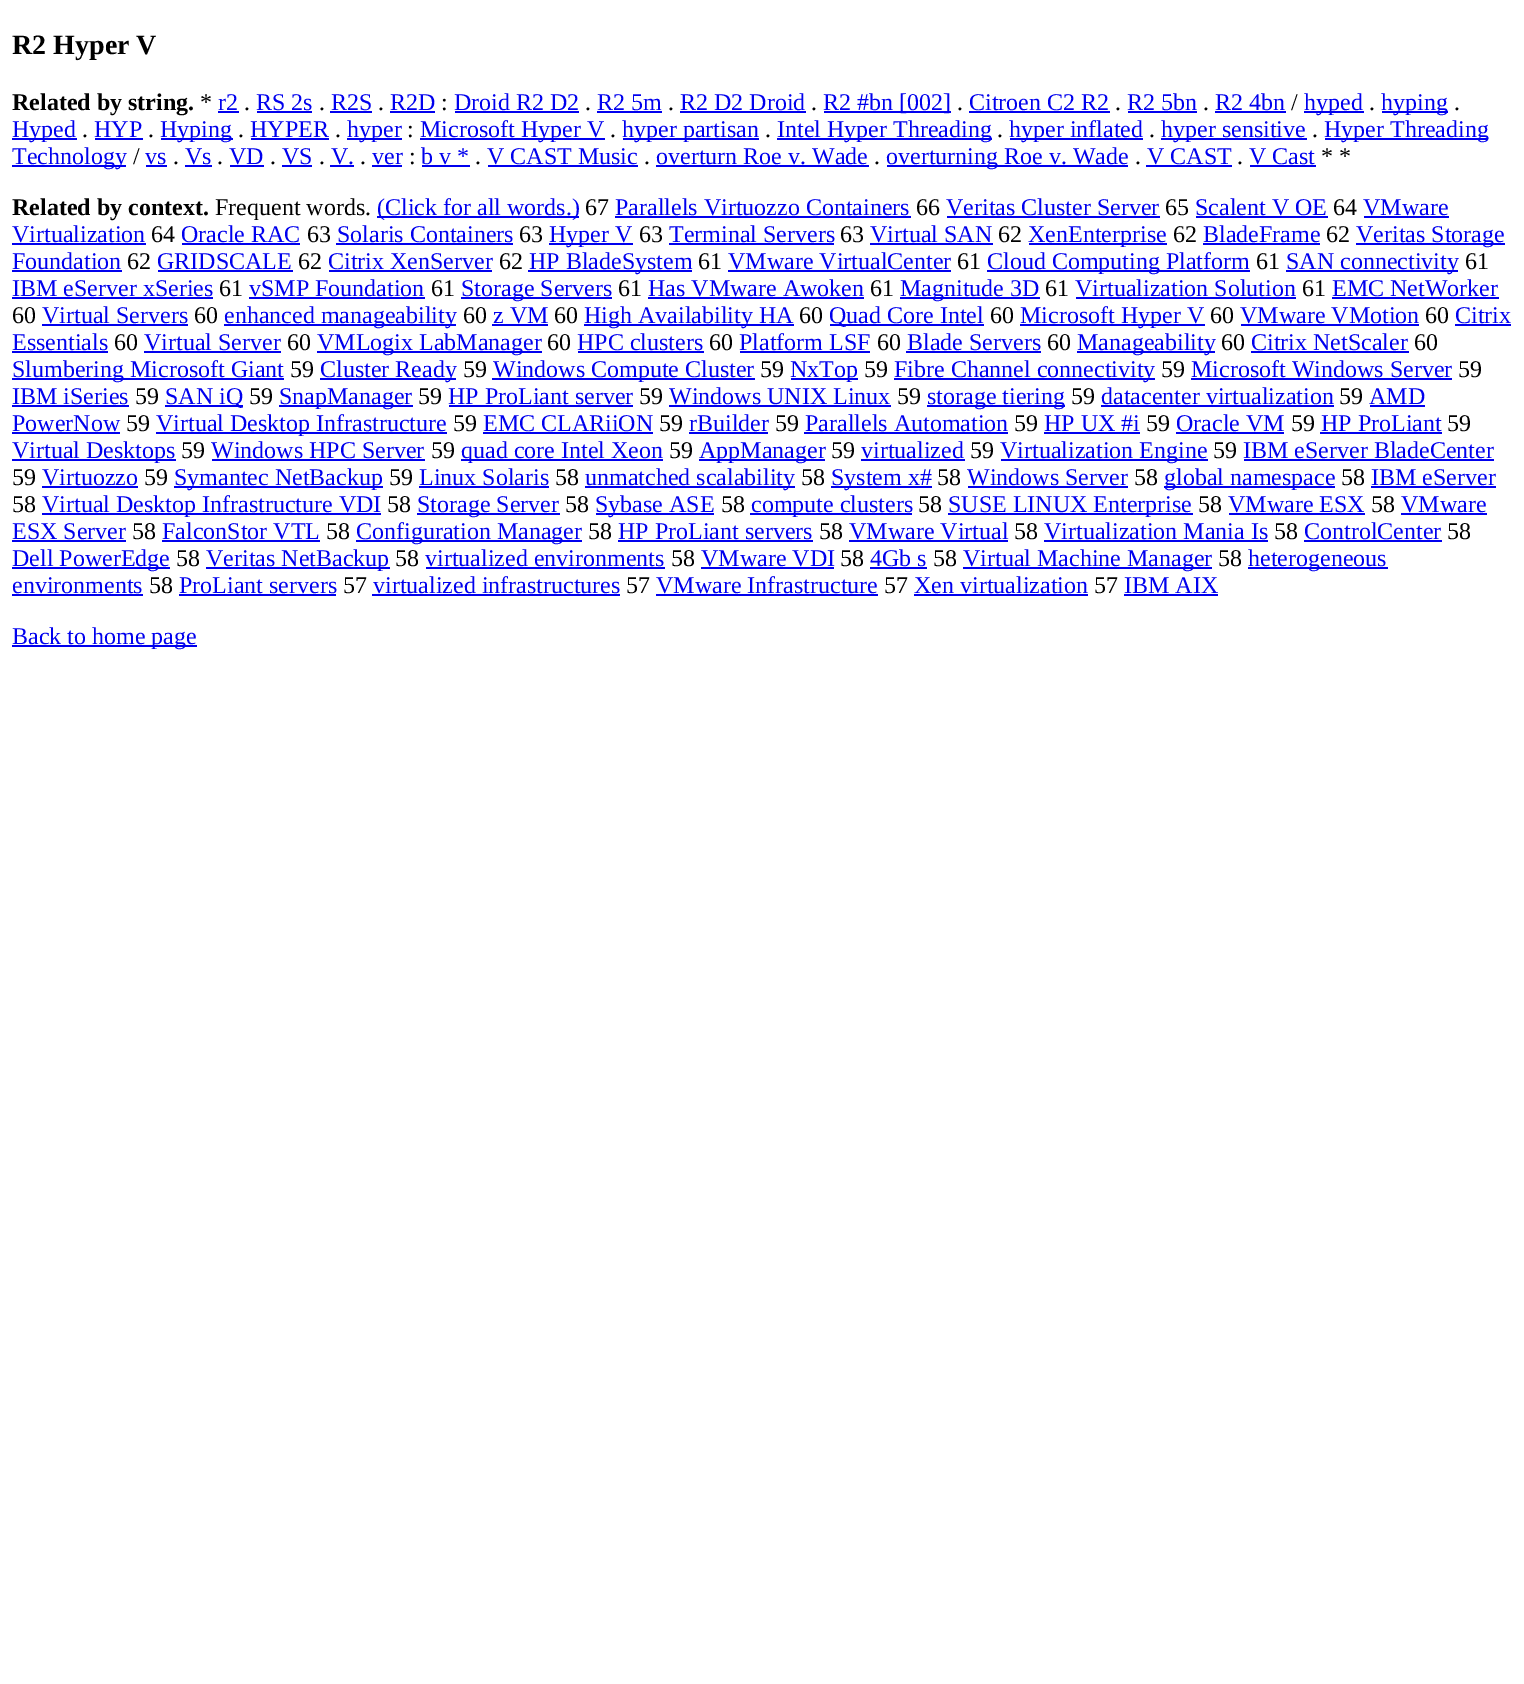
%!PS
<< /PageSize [1524 1684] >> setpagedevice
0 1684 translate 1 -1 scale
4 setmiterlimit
1 setgray
0 0 1524 1684 rectfill
/LiberationSerif-Bold [28 0 0 -28 0 0] selectfont
0 setgray
12 54 moveto (R2 Hyper V) show
/LiberationSerif-Bold [24 0 0 -24 0 0] selectfont
12 110 moveto (Related by string.) show
/LiberationSerif-Regular [24 0 0 -24 0 0] selectfont
200 110 moveto (*) show
0 0 0.933 setrgbcolor
218 110 moveto (r2) show
218 111 21 2 rectfill
0 setgray
244 110 moveto (.) show
0 0 0.933 setrgbcolor
256 110 moveto (RS 2s) show
257 111 55 2 rectfill
0 setgray
319 110 moveto (.) show
0 0 0.933 setrgbcolor
331 110 moveto (R2S) show
330 111 42 2 rectfill
0 setgray
378 110 moveto (.) show
0 0 0.933 setrgbcolor
390 110 moveto (R2D) show
390 111 45 2 rectfill
0 setgray
441 110 moveto (:) show
0 0 0.933 setrgbcolor
454 110 moveto (Droid R2 D2) show
455 111 124 2 rectfill
0 setgray
585 110 moveto (.) show
0 0 0.933 setrgbcolor
597 110 moveto (R2 5m) show
597 111 65 2 rectfill
0 setgray
668 110 moveto (.) show
0 0 0.933 setrgbcolor
680 110 moveto (R2 D2 Droid) show
680 111 126 2 rectfill
0 setgray
811 110 moveto (.) show
0 0 0.933 setrgbcolor
824 111 127 2 rectfill
823 110 moveto (R2 #bn [002]) show
0 setgray
957 110 moveto (.) show
0 0 0.933 setrgbcolor
969 110 moveto (Citroen C2 R2) show
969 111 141 2 rectfill
0 setgray
1115 110 moveto (.) show
0 0 0.933 setrgbcolor
1127 110 moveto (R2 5bn) show
1128 111 69 2 rectfill
0 setgray
1203 110 moveto (.) show
0 0 0.933 setrgbcolor
1215 110 moveto (R2 4bn) show
1215 111 71 2 rectfill
0 setgray
1291 110 moveto (/) show
0 0 0.933 setrgbcolor
1304 111 60 2 rectfill
1304 110 moveto (hyped) show
0 setgray
1369 110 moveto (.) show
0 0 0.933 setrgbcolor
1382 111 66 2 rectfill
1381 110 moveto (hyping) show
0 setgray
1454 110 moveto (.) show
0 0 0.933 setrgbcolor
12 138 65 2 rectfill
12 137 moveto (Hyped) show
0 setgray
82 137 moveto (.) show
0 0 0.933 setrgbcolor
94 137 moveto (HYP) show
95 138 48 2 rectfill
0 setgray
148 137 moveto (.) show
0 0 0.933 setrgbcolor
161 138 72 2 rectfill
160 137 moveto (Hyping) show
0 setgray
238 137 moveto (.) show
0 0 0.933 setrgbcolor
250 137 moveto (HYPER) show
251 138 78 2 rectfill
0 setgray
335 137 moveto (.) show
0 0 0.933 setrgbcolor
347 138 55 2 rectfill
347 137 moveto (hyper) show
0 setgray
407 137 moveto (:) show
0 0 0.933 setrgbcolor
420 138 185 2 rectfill
420 137 moveto (Microsoft Hyper V) show
0 setgray
610 137 moveto (.) show
0 0 0.933 setrgbcolor
623 138 136 2 rectfill
622 137 moveto (hyper partisan) show
0 setgray
765 137 moveto (.) show
0 0 0.933 setrgbcolor
777 138 215 2 rectfill
777 137 moveto (Intel Hyper Threading) show
0 setgray
997 137 moveto (.) show
0 0 0.933 setrgbcolor
1010 138 133 2 rectfill
1009 137 moveto (hyper inflated) show
0 setgray
1149 137 moveto (.) show
0 0 0.933 setrgbcolor
1161 138 146 2 rectfill
1161 137 moveto (hyper sensitive) show
0 setgray
1312 137 moveto (.) show
0 0 0.933 setrgbcolor
1325 138 163 2 rectfill
1324 137 moveto (Hyper Threading) show
12 165 114 2 rectfill
12 164 moveto (Technology) show
0 setgray
133 164 moveto (/) show
0 0 0.933 setrgbcolor
145 164 moveto (vs) show
146 165 21 2 rectfill
0 setgray
173 164 moveto (.) show
0 0 0.933 setrgbcolor
185 164 moveto (Vs) show
185 165 27 2 rectfill
0 setgray
217 164 moveto (.) show
0 0 0.933 setrgbcolor
229 164 moveto (VD) show
230 165 34 2 rectfill
0 setgray
270 164 moveto (.) show
0 0 0.933 setrgbcolor
282 164 moveto (VS) show
282 165 30 2 rectfill
0 setgray
319 164 moveto (.) show
0 0 0.933 setrgbcolor
331 164 moveto (V.) show
330 165 24 2 rectfill
0 setgray
360 164 moveto (.) show
0 0 0.933 setrgbcolor
372 164 moveto (ver) show
372 165 30 2 rectfill
0 setgray
409 164 moveto (:) show
0 0 0.933 setrgbcolor
421 164 moveto (b v *) show
422 165 48 2 rectfill
0 setgray
475 164 moveto (.) show
0 0 0.933 setrgbcolor
487 164 moveto (V CAST Music) show
488 165 150 2 rectfill
0 setgray
644 164 moveto (.) show
0 0 0.933 setrgbcolor
656 164 moveto (overturn Roe v. Wade) show
656 165 213 2 rectfill
0 setgray
874 164 moveto (.) show
0 0 0.933 setrgbcolor
887 165 241 2 rectfill
886 164 moveto (overturning Roe v. Wade) show
0 setgray
1135 164 moveto (.) show
0 0 0.933 setrgbcolor
1147 164 moveto (V CAST) show
1146 165 86 2 rectfill
0 setgray
1237 164 moveto (.) show
0 0 0.933 setrgbcolor
1249 164 moveto (V Cast) show
1250 165 66 2 rectfill
0 setgray
1321 164 moveto (* *) show
/LiberationSerif-Bold [24 0 0 -24 0 0] selectfont
12 215 moveto (Related by context.) show
/LiberationSerif-Regular [24 0 0 -24 0 0] selectfont
215 215 moveto (Frequent words.) show
0 0 0.933 setrgbcolor
377 216 202 2 rectfill
377 215 moveto (\(Click for all words.\)) show
0 setgray
585 215 moveto (67) show
0 0 0.933 setrgbcolor
615 215 moveto (Parallels Virtuozzo Containers) show
615 216 296 2 rectfill
0 setgray
916 215 moveto (66) show
0 0 0.933 setrgbcolor
946 215 moveto (Veritas Cluster Server) show
947 216 213 2 rectfill
0 setgray
1165 215 moveto (65) show
0 0 0.933 setrgbcolor
1195 215 moveto (Scalent V OE) show
1196 216 132 2 rectfill
0 setgray
1333 215 moveto (64) show
0 0 0.933 setrgbcolor
1363 215 moveto (VMware) show
1364 216 85 2 rectfill
12 242 moveto (Virtualization) show
12 243 134 2 rectfill
0 setgray
151 242 moveto (64) show
0 0 0.933 setrgbcolor
181 242 moveto (Oracle RAC) show
182 243 118 2 rectfill
0 setgray
307 242 moveto (63) show
0 0 0.933 setrgbcolor
337 242 moveto (Solaris Containers) show
336 243 177 2 rectfill
0 setgray
519 242 moveto (63) show
0 0 0.933 setrgbcolor
549 243 84 2 rectfill
549 242 moveto (Hyper V) show
0 setgray
639 242 moveto (63) show
0 0 0.933 setrgbcolor
669 242 moveto (Terminal Servers) show
669 243 165 2 rectfill
0 setgray
840 242 moveto (63) show
0 0 0.933 setrgbcolor
870 242 moveto (Virtual SAN) show
870 243 123 2 rectfill
0 setgray
998 242 moveto (62) show
0 0 0.933 setrgbcolor
1029 243 138 2 rectfill
1028 242 moveto (XenEnterprise) show
0 setgray
1173 242 moveto (62) show
0 0 0.933 setrgbcolor
1203 242 moveto (BladeFrame) show
1203 243 117 2 rectfill
0 setgray
1326 242 moveto (62) show
0 0 0.933 setrgbcolor
1356 243 149 2 rectfill
1356 242 moveto (Veritas Storage) show
12 269 moveto (Foundation) show
12 270 110 2 rectfill
0 setgray
127 269 moveto (62) show
0 0 0.933 setrgbcolor
157 269 moveto (GRIDSCALE) show
158 270 135 2 rectfill
0 setgray
298 269 moveto (62) show
0 0 0.933 setrgbcolor
328 269 moveto (Citrix XenServer) show
329 270 163 2 rectfill
0 setgray
499 269 moveto (62) show
0 0 0.933 setrgbcolor
528 270 164 2 rectfill
529 269 moveto (HP BladeSystem) show
0 setgray
698 269 moveto (61) show
0 0 0.933 setrgbcolor
728 269 moveto (VMware VirtualCenter) show
728 270 223 2 rectfill
0 setgray
957 269 moveto (61) show
0 0 0.933 setrgbcolor
987 270 263 2 rectfill
987 269 moveto (Cloud Computing Platform) show
0 setgray
1256 269 moveto (61) show
0 0 0.933 setrgbcolor
1286 270 172 2 rectfill
1286 269 moveto (SAN connectivity) show
0 setgray
1465 269 moveto (61) show
0 0 0.933 setrgbcolor
12 296 moveto (IBM eServer xSeries) show
12 297 201 2 rectfill
0 setgray
219 296 moveto (61) show
0 0 0.933 setrgbcolor
249 296 moveto (vSMP Foundation) show
249 297 176 2 rectfill
0 setgray
431 296 moveto (61) show
0 0 0.933 setrgbcolor
461 297 151 2 rectfill
461 296 moveto (Storage Servers) show
0 setgray
618 296 moveto (61) show
0 0 0.933 setrgbcolor
648 296 moveto (Has VMware Awoken) show
648 297 216 2 rectfill
0 setgray
870 296 moveto (61) show
0 0 0.933 setrgbcolor
900 297 140 2 rectfill
900 296 moveto (Magnitude 3D) show
0 setgray
1045 296 moveto (61) show
0 0 0.933 setrgbcolor
1075 296 moveto (Virtualization Solution) show
1076 297 220 2 rectfill
0 setgray
1302 296 moveto (61) show
0 0 0.933 setrgbcolor
1332 296 moveto (EMC NetWorker) show
1332 297 167 2 rectfill
0 setgray
12 323 moveto (60) show
0 0 0.933 setrgbcolor
42 323 moveto (Virtual Servers) show
42 324 146 2 rectfill
0 setgray
194 323 moveto (60) show
0 0 0.933 setrgbcolor
224 324 232 2 rectfill
224 323 moveto (enhanced manageability) show
0 setgray
463 323 moveto (60) show
0 0 0.933 setrgbcolor
493 323 moveto (z VM) show
492 324 56 2 rectfill
0 setgray
554 323 moveto (60) show
0 0 0.933 setrgbcolor
584 324 210 2 rectfill
584 323 moveto (High Availability HA) show
0 setgray
799 323 moveto (60) show
0 0 0.933 setrgbcolor
830 324 154 2 rectfill
829 323 moveto (Quad Core Intel) show
0 setgray
990 323 moveto (60) show
0 0 0.933 setrgbcolor
1020 324 185 2 rectfill
1020 323 moveto (Microsoft Hyper V) show
0 setgray
1210 323 moveto (60) show
0 0 0.933 setrgbcolor
1240 323 moveto (VMware VMotion) show
1241 324 178 2 rectfill
0 setgray
1425 323 moveto (60) show
0 0 0.933 setrgbcolor
1455 323 moveto (Citrix) show
1455 324 56 2 rectfill
12 350 moveto (Essentials) show
12 351 96 2 rectfill
0 setgray
114 350 moveto (60) show
0 0 0.933 setrgbcolor
144 350 moveto (Virtual Server) show
144 351 137 2 rectfill
0 setgray
287 350 moveto (60) show
0 0 0.933 setrgbcolor
317 351 225 2 rectfill
317 350 moveto (VMLogix LabManager) show
0 setgray
547 350 moveto (60) show
0 0 0.933 setrgbcolor
577 350 moveto (HPC clusters) show
578 351 126 2 rectfill
0 setgray
709 350 moveto (60) show
0 0 0.933 setrgbcolor
739 350 moveto (Platform LSF) show
740 351 130 2 rectfill
0 setgray
877 350 moveto (60) show
0 0 0.933 setrgbcolor
907 350 moveto (Blade Servers) show
906 351 135 2 rectfill
0 setgray
1047 350 moveto (60) show
0 0 0.933 setrgbcolor
1077 351 138 2 rectfill
1077 350 moveto (Manageability) show
0 setgray
1221 350 moveto (60) show
0 0 0.933 setrgbcolor
1251 350 moveto (Citrix NetScaler) show
1251 351 158 2 rectfill
0 setgray
1414 350 moveto (60) show
0 0 0.933 setrgbcolor
12 378 272 2 rectfill
12 377 moveto (Slumbering Microsoft Giant) show
0 setgray
290 377 moveto (59) show
0 0 0.933 setrgbcolor
320 378 136 2 rectfill
320 377 moveto (Cluster Ready) show
0 setgray
463 377 moveto (59) show
0 0 0.933 setrgbcolor
492 378 263 2 rectfill
493 377 moveto (Windows Compute Cluster) show
0 setgray
760 377 moveto (59) show
0 0 0.933 setrgbcolor
791 378 67 2 rectfill
790 377 moveto (NxTop) show
0 setgray
864 377 moveto (59) show
0 0 0.933 setrgbcolor
894 378 261 2 rectfill
894 377 moveto (Fibre Channel connectivity) show
0 setgray
1161 377 moveto (59) show
0 0 0.933 setrgbcolor
1191 377 moveto (Microsoft Windows Server) show
1191 378 261 2 rectfill
0 setgray
1458 377 moveto (59) show
0 0 0.933 setrgbcolor
12 404 moveto (IBM iSeries) show
12 405 117 2 rectfill
0 setgray
135 404 moveto (59) show
0 0 0.933 setrgbcolor
165 405 78 2 rectfill
165 404 moveto (SAN iQ) show
0 setgray
249 404 moveto (59) show
0 0 0.933 setrgbcolor
279 405 134 2 rectfill
279 404 moveto (SnapManager) show
0 setgray
418 404 moveto (59) show
0 0 0.933 setrgbcolor
448 404 moveto (HP ProLiant server) show
449 405 184 2 rectfill
0 setgray
639 404 moveto (59) show
0 0 0.933 setrgbcolor
669 404 moveto (Windows UNIX Linux) show
669 405 222 2 rectfill
0 setgray
897 404 moveto (59) show
0 0 0.933 setrgbcolor
927 405 138 2 rectfill
927 404 moveto (storage tiering) show
0 setgray
1071 404 moveto (59) show
0 0 0.933 setrgbcolor
1101 404 moveto (datacenter virtualization) show
1101 405 233 2 rectfill
0 setgray
1339 404 moveto (59) show
0 0 0.933 setrgbcolor
1369 404 moveto (AMD) show
1370 405 55 2 rectfill
12 431 moveto (PowerNow) show
12 432 108 2 rectfill
0 setgray
126 431 moveto (59) show
0 0 0.933 setrgbcolor
156 432 291 2 rectfill
156 431 moveto (Virtual Desktop Infrastructure) show
0 setgray
453 431 moveto (59) show
0 0 0.933 setrgbcolor
483 431 moveto (EMC CLARiiON) show
483 432 170 2 rectfill
0 setgray
659 431 moveto (59) show
0 0 0.933 setrgbcolor
689 431 moveto (rBuilder) show
689 432 79 2 rectfill
0 setgray
775 431 moveto (59) show
0 0 0.933 setrgbcolor
805 431 moveto (Parallels Automation) show
804 432 204 2 rectfill
0 setgray
1014 431 moveto (59) show
0 0 0.933 setrgbcolor
1044 431 moveto (HP UX #i) show
1044 432 96 2 rectfill
0 setgray
1146 431 moveto (59) show
0 0 0.933 setrgbcolor
1176 431 moveto (Oracle VM) show
1176 432 108 2 rectfill
0 setgray
1291 431 moveto (59) show
0 0 0.933 setrgbcolor
1321 431 moveto (HP ProLiant) show
1320 432 122 2 rectfill
0 setgray
1447 431 moveto (59) show
0 0 0.933 setrgbcolor
12 459 164 2 rectfill
12 458 moveto (Virtual Desktops) show
0 setgray
181 458 moveto (59) show
0 0 0.933 setrgbcolor
211 458 moveto (Windows HPC Server) show
212 459 213 2 rectfill
0 setgray
431 458 moveto (59) show
0 0 0.933 setrgbcolor
461 459 202 2 rectfill
461 458 moveto (quad core Intel Xeon) show
0 setgray
669 458 moveto (59) show
0 0 0.933 setrgbcolor
699 459 126 2 rectfill
699 458 moveto (AppManager) show
0 setgray
831 458 moveto (59) show
0 0 0.933 setrgbcolor
861 458 moveto (virtualized) show
861 459 104 2 rectfill
0 setgray
970 458 moveto (59) show
0 0 0.933 setrgbcolor
1001 459 207 2 rectfill
1000 458 moveto (Virtualization Engine) show
0 setgray
1213 458 moveto (59) show
0 0 0.933 setrgbcolor
1243 458 moveto (IBM eServer BladeCenter) show
1244 459 250 2 rectfill
0 setgray
12 485 moveto (59) show
0 0 0.933 setrgbcolor
42 485 moveto (Virtuozzo) show
42 486 96 2 rectfill
0 setgray
144 485 moveto (59) show
0 0 0.933 setrgbcolor
174 486 209 2 rectfill
174 485 moveto (Symantec NetBackup) show
0 setgray
389 485 moveto (59) show
0 0 0.933 setrgbcolor
419 485 moveto (Linux Solaris) show
419 486 130 2 rectfill
0 setgray
555 485 moveto (58) show
0 0 0.933 setrgbcolor
585 486 210 2 rectfill
585 485 moveto (unmatched scalability) show
0 setgray
801 485 moveto (58) show
0 0 0.933 setrgbcolor
831 486 101 2 rectfill
831 485 moveto (System x#) show
0 setgray
937 485 moveto (58) show
0 0 0.933 setrgbcolor
967 485 moveto (Windows Server) show
968 486 160 2 rectfill
0 setgray
1134 485 moveto (58) show
0 0 0.933 setrgbcolor
1164 486 171 2 rectfill
1164 485 moveto (global namespace) show
0 setgray
1341 485 moveto (58) show
0 0 0.933 setrgbcolor
1371 485 moveto (IBM eServer) show
1371 486 125 2 rectfill
0 setgray
12 512 moveto (58) show
0 0 0.933 setrgbcolor
42 513 339 2 rectfill
42 512 moveto (Virtual Desktop Infrastructure VDI) show
0 setgray
387 512 moveto (58) show
0 0 0.933 setrgbcolor
417 513 143 2 rectfill
417 512 moveto (Storage Server) show
0 setgray
565 512 moveto (58) show
0 0 0.933 setrgbcolor
596 513 118 2 rectfill
595 512 moveto (Sybase ASE) show
0 setgray
721 512 moveto (58) show
0 0 0.933 setrgbcolor
750 513 162 2 rectfill
751 512 moveto (compute clusters) show
0 setgray
918 512 moveto (58) show
0 0 0.933 setrgbcolor
948 513 245 2 rectfill
948 512 moveto (SUSE LINUX Enterprise) show
0 setgray
1198 512 moveto (58) show
0 0 0.933 setrgbcolor
1228 512 moveto (VMware ESX) show
1229 513 136 2 rectfill
0 setgray
1371 512 moveto (58) show
0 0 0.933 setrgbcolor
1401 512 moveto (VMware) show
1401 513 86 2 rectfill
12 539 moveto (ESX Server) show
12 540 114 2 rectfill
0 setgray
132 539 moveto (58) show
0 0 0.933 setrgbcolor
162 539 moveto (FalconStor VTL) show
162 540 158 2 rectfill
0 setgray
326 539 moveto (58) show
0 0 0.933 setrgbcolor
356 540 226 2 rectfill
356 539 moveto (Configuration Manager) show
0 setgray
588 539 moveto (58) show
0 0 0.933 setrgbcolor
618 539 moveto (HP ProLiant servers) show
618 540 195 2 rectfill
0 setgray
819 539 moveto (58) show
0 0 0.933 setrgbcolor
849 539 moveto (VMware Virtual) show
849 540 159 2 rectfill
0 setgray
1014 539 moveto (58) show
0 0 0.933 setrgbcolor
1044 539 moveto (Virtualization Mania Is) show
1044 540 224 2 rectfill
0 setgray
1274 539 moveto (58) show
0 0 0.933 setrgbcolor
1304 539 moveto (ControlCenter) show
1304 540 138 2 rectfill
0 setgray
1447 539 moveto (58) show
0 0 0.933 setrgbcolor
12 567 158 2 rectfill
12 566 moveto (Dell PowerEdge) show
0 setgray
176 566 moveto (58) show
0 0 0.933 setrgbcolor
206 567 184 2 rectfill
206 566 moveto (Veritas NetBackup) show
0 setgray
395 566 moveto (58) show
0 0 0.933 setrgbcolor
425 566 moveto (virtualized environments) show
426 567 239 2 rectfill
0 setgray
671 566 moveto (58) show
0 0 0.933 setrgbcolor
701 566 moveto (VMware VDI) show
701 567 133 2 rectfill
0 setgray
840 566 moveto (58) show
0 0 0.933 setrgbcolor
870 566 moveto (4Gb s) show
870 567 57 2 rectfill
0 setgray
933 566 moveto (58) show
0 0 0.933 setrgbcolor
963 567 249 2 rectfill
963 566 moveto (Virtual Machine Manager) show
0 setgray
1218 566 moveto (58) show
0 0 0.933 setrgbcolor
1248 567 140 2 rectfill
1248 566 moveto (heterogeneous) show
12 593 moveto (environments) show
12 594 131 2 rectfill
0 setgray
149 593 moveto (58) show
0 0 0.933 setrgbcolor
179 593 moveto (ProLiant servers) show
179 594 157 2 rectfill
0 setgray
343 593 moveto (57) show
0 0 0.933 setrgbcolor
373 593 moveto (virtualized infrastructures) show
372 594 248 2 rectfill
0 setgray
626 593 moveto (57) show
0 0 0.933 setrgbcolor
656 593 moveto (VMware Infrastructure) show
656 594 222 2 rectfill
0 setgray
884 593 moveto (57) show
0 0 0.933 setrgbcolor
914 593 moveto (Xen virtualization) show
914 594 174 2 rectfill
0 setgray
1094 593 moveto (57) show
0 0 0.933 setrgbcolor
1124 593 moveto (IBM AIX) show
1124 594 94 2 rectfill
12 645 185 2 rectfill
12 644 moveto (Back to home page) show
showpage
